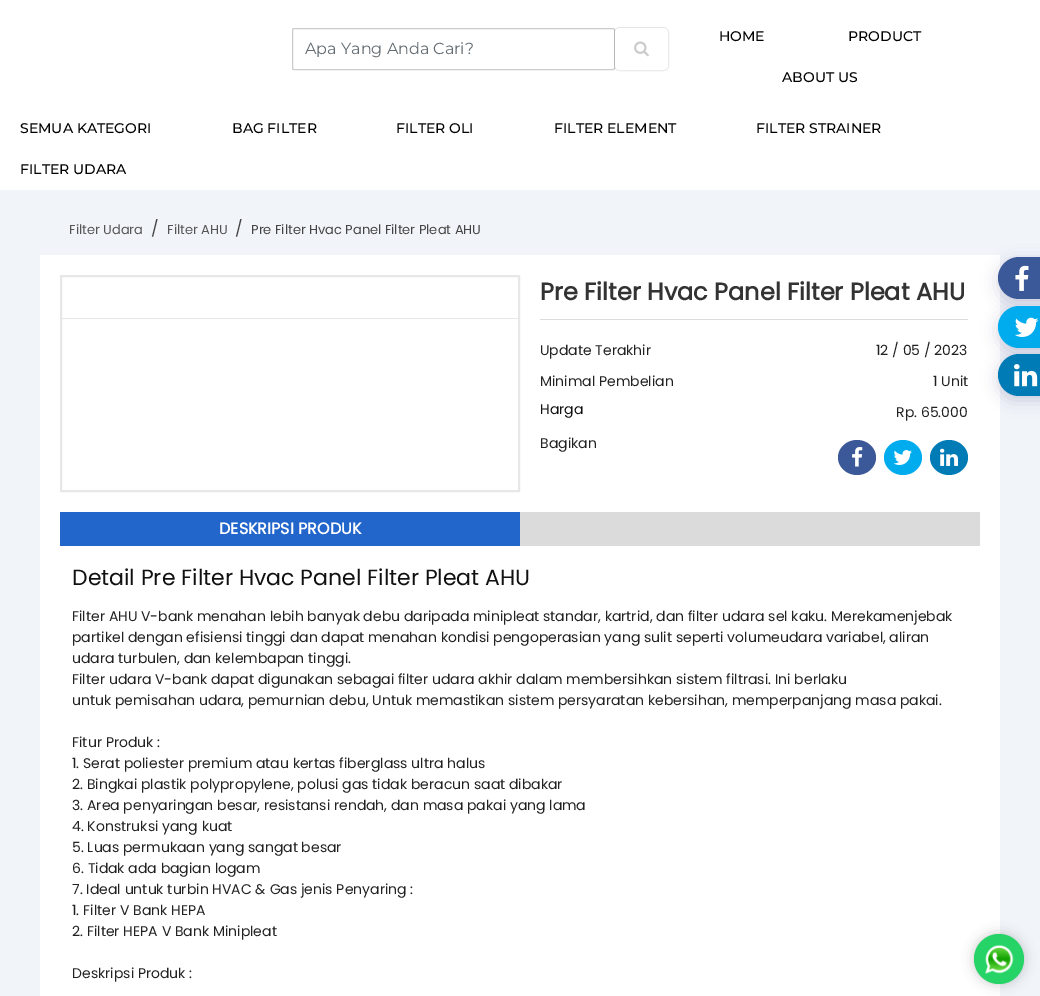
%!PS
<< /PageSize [1040 996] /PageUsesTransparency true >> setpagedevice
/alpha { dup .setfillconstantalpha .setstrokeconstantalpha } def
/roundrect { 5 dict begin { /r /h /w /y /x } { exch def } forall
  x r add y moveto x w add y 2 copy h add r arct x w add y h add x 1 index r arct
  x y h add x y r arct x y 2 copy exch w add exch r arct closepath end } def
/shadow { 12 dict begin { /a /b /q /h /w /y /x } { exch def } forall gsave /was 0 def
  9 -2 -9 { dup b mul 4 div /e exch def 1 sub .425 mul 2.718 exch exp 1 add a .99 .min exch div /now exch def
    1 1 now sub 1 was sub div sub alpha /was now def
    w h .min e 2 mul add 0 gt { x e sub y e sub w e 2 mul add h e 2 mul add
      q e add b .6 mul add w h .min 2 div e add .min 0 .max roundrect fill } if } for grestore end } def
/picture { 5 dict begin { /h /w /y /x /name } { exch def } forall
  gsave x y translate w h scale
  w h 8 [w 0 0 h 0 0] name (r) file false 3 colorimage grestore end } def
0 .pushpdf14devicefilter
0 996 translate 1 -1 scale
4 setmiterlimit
1 setgray
0 0 1040 996 rectfill
0.8 setgray
292.5 28.5 322 41 1.5 roundrect stroke
/Montserrat-Regular [16 0 0 -16 0 0] selectfont
0.388 0.424 0.447 setrgbcolor
305 54 moveto (Apa Yang Anda Cari?) show
0.1 alpha
0 setgray
614.5 27.5 54 43 5.5 roundrect stroke
1 alpha
1 setgray
3 setlinewidth
616.5 29.5 50 39 3.5 roundrect stroke
(img1.rgb) 634 41 15 16 picture
/Montserrat-Medium [14 0 0 -14 0 0] selectfont
0 setgray
719 41 moveto (HOME) show
848 41 moveto (PRODUCT) show
782 82 moveto (ABOUT US) show
20 133 moveto (SEMUA KATEGORI) show
232 133 moveto (BAG FILTER) show
396 133 moveto (FILTER OLI) show
554 133 moveto (FILTER ELEMENT) show
756 133 moveto (FILTER STRAINER) show
20 174 moveto (FILTER UDARA) show
0.945 0.957 0.976 setrgbcolor
0 190 1040 806 rectfill
/Poppins-Regular [13 0 0 -13 0 0] selectfont
0.333 setgray
69 234 moveto (Filter Udara) show
/Poppins-Regular [16 0 0 -16 0 0] selectfont
0.267 setgray
151 234 moveto (/) show
/Poppins-Regular [13 0 0 -13 0 0] selectfont
0.333 setgray
167 234 moveto (Filter AHU) show
/Poppins-Regular [16 0 0 -16 0 0] selectfont
0.267 setgray
235 234 moveto (/) show
/Poppins-Regular [13 0 0 -13 0 0] selectfont
251 234 moveto (Pre Filter Hvac Panel Filter Pleat AHU) show
1 setgray
40 255 960 741 rectfill
0.906 setgray
2 setlinewidth
61 276 458 215 rectstroke
62 318 456 1 rectfill
0.863 0.859 0.859 setrgbcolor
540 319 428 1 rectfill
/Poppins-Bold [24 0 0 -24 0 0] selectfont
0.2 setgray
540 300 moveto (Pre Filter Hvac Panel Filter Pleat AHU) show
/Poppins-Regular [14 0 0 -14 0 0] selectfont
0.133 setgray
540 355 moveto (Update Terakhir) show
876 355 moveto (12 / 05 / 2023) show
540 386 moveto (Minimal Pembelian) show
933 386 moveto (1 Unit) show
0.067 setgray
540 414 moveto (Harga) show
0.133 setgray
896 417 moveto (Rp. 65.000) show
540 448 moveto (Bagikan) show
0.231 0.349 0.596 setrgbcolor
newpath 857 440 moveto 867.5 440 876 448 876 457.5 curveto 876 467 867.5 475 857 475 curveto 846.5 475 838 467 838 457.5 curveto 838 448 846.5 440 857 440 curveto closepath fill
(img2.rgb) 852 447 11 20 picture
0 0.675 0.929 setrgbcolor
newpath 903 440 moveto 913.5 440 922 448 922 457.5 curveto 922 467 913.5 475 903 475 curveto 892.5 475 884 467 884 457.5 curveto 884 448 892.5 440 903 440 curveto closepath fill
(img3.rgb) 893 450 19 15 picture
0 0.482 0.714 setrgbcolor
newpath 949 440 moveto 959.5 440 968 448 968 457.5 curveto 968 467 959.5 475 949 475 curveto 938.5 475 930 467 930 457.5 curveto 930 448 938.5 440 949 440 curveto closepath fill
(img4.rgb) 940 448 18 18 picture
0.863 0.859 0.859 setrgbcolor
520 512 460 34 rectfill
0.133 0.4 0.8 setrgbcolor
60 512 460 34 rectfill
/Poppins-Bold [16 0 0 -16 0 0] selectfont
1 setgray
219 534 moveto (DESKRIPSI PRODUK) show
/Poppins-Regular [22 0 0 -22 0 0] selectfont
0.067 setgray
72 585 moveto (Detail Pre Filter Hvac Panel Filter Pleat AHU) show
/Poppins-Regular [14 0 0 -14 0 0] selectfont
0.133 setgray
72 621 moveto (Filter AHU V-bank menahan lebih banyak debu daripada minipleat standar, kartrid, dan filter udara sel kaku. Merekamenjebak) show
72 642 moveto (partikel dengan efisiensi tinggi dan dapat menahan kondisi pengoperasian yang sulit seperti volumeudara variabel, aliran) show
72 663 moveto (udara turbulen, dan kelembapan tinggi.) show
72 684 moveto (Filter udara V-bank dapat digunakan sebagai filter udara akhir dalam membersihkan sistem filtrasi. Ini berlaku) show
72 705 moveto (untuk pemisahan udara, pemurnian debu, Untuk memastikan sistem persyaratan kebersihan, memperpanjang masa pakai.) show
72 747 moveto (Fitur Produk :) show
72 768 moveto (1. Serat poliester premium atau kertas fiberglass ultra halus) show
72 789 moveto (2. Bingkai plastik polypropylene, polusi gas tidak beracun saat dibakar) show
72 810 moveto (3. Area penyaringan besar, resistansi rendah, dan masa pakai yang lama) show
72 831 moveto (4. Konstruksi yang kuat) show
72 852 moveto (5. Luas permukaan yang sangat besar) show
72 873 moveto (6. Tidak ada bagian logam) show
72 894 moveto (7. Ideal untuk turbin HVAC & Gas jenis Penyaring :) show
72 915 moveto (1. Filter V Bank HEPA) show
72 936 moveto (2. Filter HEPA V Bank Minipleat) show
72 978 moveto (Deskripsi Produk :) show
0 0 0.294 setrgbcolor
998 261 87 42 21 8 0.16 shadow
0.231 0.349 0.596 setrgbcolor
newpath 1019 257 moveto 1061 257 lineto 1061 299 lineto 1019 299 lineto 1007.5 299 998 289.5 998 278 curveto 998 266.5 1007.5 257 1019 257 curveto closepath fill
(img5.rgb) 1015 265 14 26 picture
0 0 0.294 setrgbcolor
998 310 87 42 21 8 0.16 shadow
0 0.675 0.929 setrgbcolor
newpath 1019 306 moveto 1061 306 lineto 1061 348 lineto 1019 348 lineto 1007.5 348 998 338.5 998 327 curveto 998 315.5 1007.5 306 1019 306 curveto closepath fill
(img6.rgb) 1014 317 25 20 picture
0 0 0.294 setrgbcolor
998 358 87 42 21 8 0.16 shadow
0 0.482 0.714 setrgbcolor
newpath 1019 354 moveto 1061 354 lineto 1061 396 lineto 1019 396 lineto 1007.5 396 998 386.5 998 375 curveto 998 363.5 1007.5 354 1019 354 curveto closepath fill
(img7.rgb) 1014 364 24 23 picture
0 setgray
974 934 50 50 25 6 0.2 shadow
0.145 0.827 0.4 setrgbcolor
newpath 999 959 25 0 360 arc closepath fill
(img8.rgb) 985 945 29 29 picture
.poppdf14devicefilter showpage
